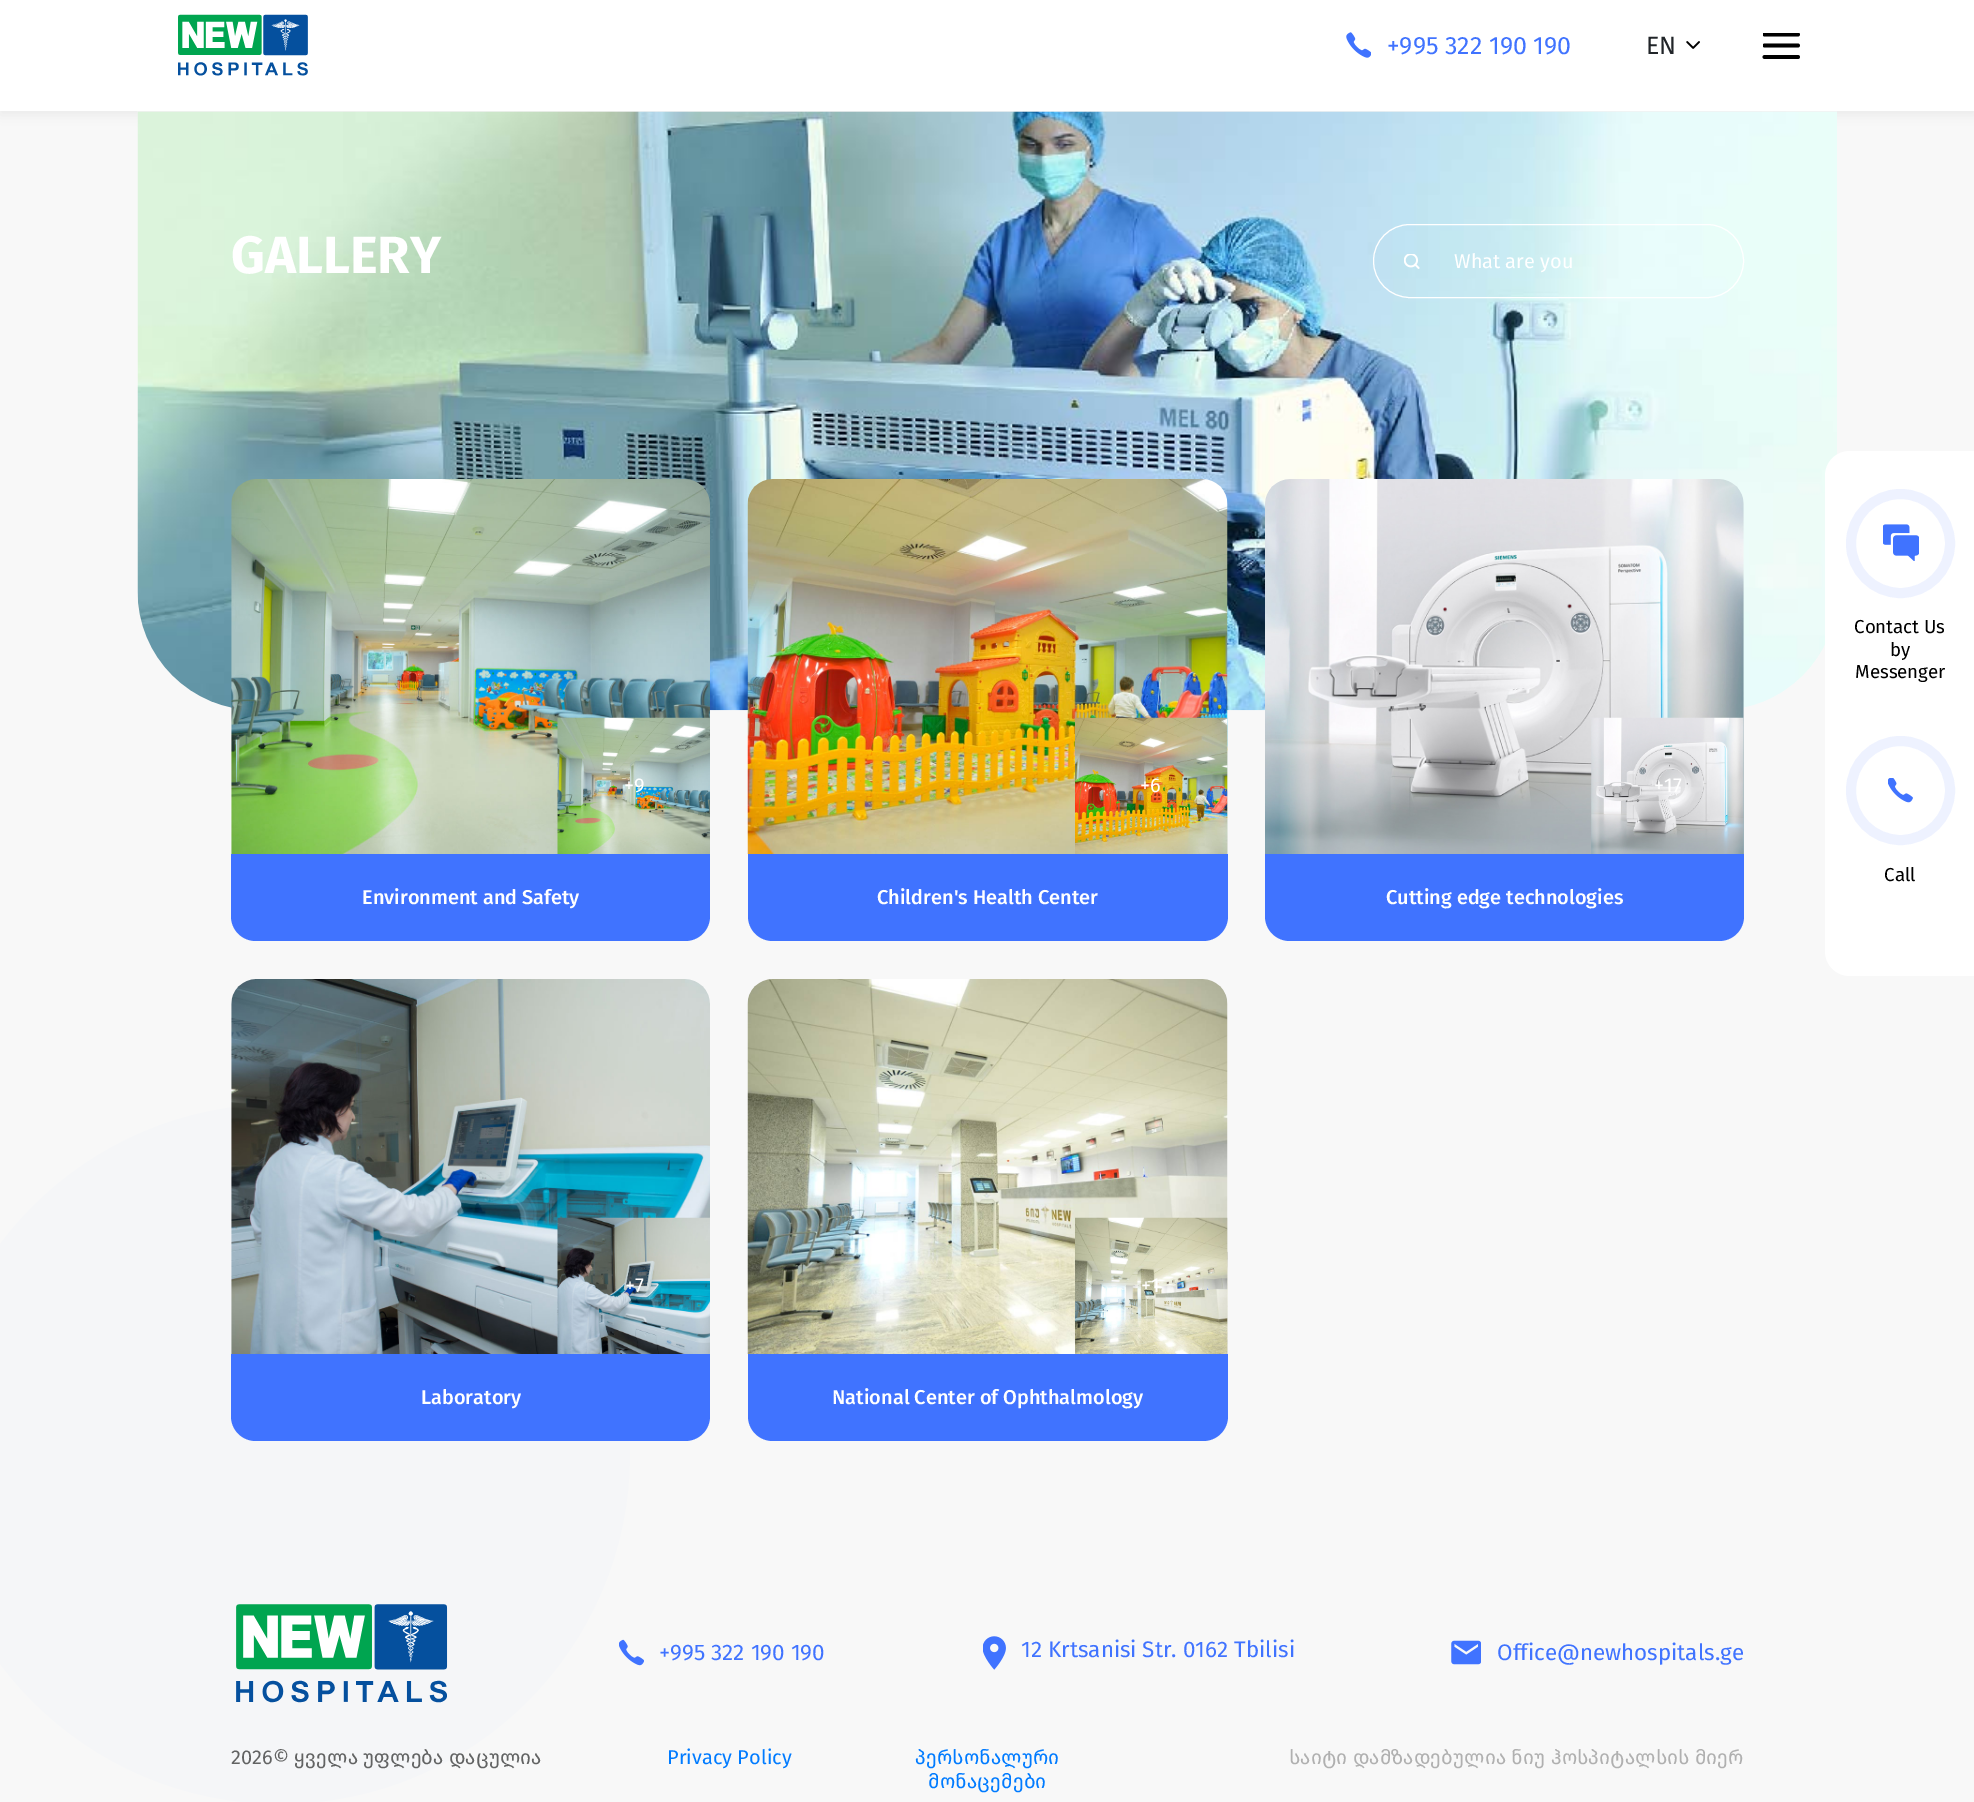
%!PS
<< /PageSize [1974 1802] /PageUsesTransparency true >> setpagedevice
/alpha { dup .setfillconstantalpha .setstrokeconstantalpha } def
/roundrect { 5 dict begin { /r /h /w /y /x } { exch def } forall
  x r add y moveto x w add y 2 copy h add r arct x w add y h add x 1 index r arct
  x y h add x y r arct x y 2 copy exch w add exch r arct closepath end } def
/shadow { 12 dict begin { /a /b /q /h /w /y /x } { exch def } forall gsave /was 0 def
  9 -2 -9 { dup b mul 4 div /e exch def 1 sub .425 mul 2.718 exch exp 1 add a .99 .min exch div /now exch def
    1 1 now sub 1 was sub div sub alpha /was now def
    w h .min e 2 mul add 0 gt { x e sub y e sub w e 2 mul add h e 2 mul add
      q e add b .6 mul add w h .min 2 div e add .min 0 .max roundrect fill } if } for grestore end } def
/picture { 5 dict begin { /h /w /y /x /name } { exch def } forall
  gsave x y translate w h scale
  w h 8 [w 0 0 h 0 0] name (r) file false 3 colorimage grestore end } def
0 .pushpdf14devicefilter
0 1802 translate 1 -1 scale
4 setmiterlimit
0.973 setgray
0 0 1974 1802 rectfill
0 setgray
0 -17 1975 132 0 6 0.05 shadow
1 setgray
0 0 1974 111 rectfill
(img1.rgb) 178 14 130 62 picture
(img2.rgb) 1346 32 25 26 picture
/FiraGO-Regular [25 0 0 -25 0 0] selectfont
0.251 0.451 1 setrgbcolor
1387 54 moveto (+995 322 190 190) show
0.129 0.145 0.161 setrgbcolor
1646 54 moveto (EN) show
(img3.rgb) 1686 41 14 8 picture
gsave
1763 33 37 26 rectclip
0 setgray
3.8 setlinewidth
1 setlinecap
1 setlinejoin
newpath 1764.5 45.5 moveto 1798 45.5 lineto 1764.5 34.5 moveto 1798 34.5 lineto stroke
grestore
0 setgray
3.8 setlinewidth
1 setlinecap
1 setlinejoin
newpath 1764.5 57 moveto 1798 57 lineto stroke
(img4.rgb) 137 111 1700 600 picture
/FiraGO-Bold [52.5 0 0 -52.5 0 0] selectfont
1 setgray
231 273 moveto (GALLERY) show
1 setlinewidth
0 setlinecap
0 setlinejoin
1373.5 224.5 370 73 36.5 roundrect stroke
(img5.rgb) 1404 254 16 15 picture
/FiraGO-Regular [20 0 0 -20 0 0] selectfont
1454 268 moveto (What are you) show
newpath 1850 451 moveto 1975 451 lineto 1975 976 lineto 1850 976 lineto 1836 976 1825 965 1825 951 curveto 1825 476 lineto 1825 462 1836 451 1850 451 curveto closepath fill
0.933 0.949 1 setrgbcolor
10 setlinewidth
newpath 1900.5 543.5 49.5 0 360 arc closepath stroke
(img6.rgb) 1883 524 36 37 picture
/FiraGO-Regular [18.75 0 0 -18.75 0 0] selectfont
0 setgray
1854 633 moveto (Contact Us) show
1890 656 moveto (by) show
1855 678 moveto (Messenger) show
0.933 0.949 1 setrgbcolor
newpath 1900.5 790.5 49.5 0 360 arc closepath stroke
(img7.rgb) 1888 778 25 25 picture
0 setgray
1884 881 moveto (Call) show
(img8.rgb) 231 479 479 375 picture
(img9.rgb) 557 717 153 137 picture
/FiraGO-Regular [20 0 0 -20 0 0] selectfont
1 setgray
624 792 moveto (+9) show
0.251 0.451 1 setrgbcolor
newpath 231 854 moveto 710 854 lineto 710 916 lineto 710 930 699 941 685 941 curveto 256 941 lineto 242 941 231 930 231 916 curveto closepath fill
/FiraGO-Medium [20 0 0 -20 0 0] selectfont
1 setgray
362 904 moveto (Environment and Safety) show
(img10.rgb) 747 479 481 375 picture
(img11.rgb) 1075 717 153 137 picture
/FiraGO-Regular [20 0 0 -20 0 0] selectfont
1140 792 moveto (+6) show
0.251 0.451 1 setrgbcolor
newpath 748 854 moveto 1228 854 lineto 1228 916 lineto 1228 930 1217 941 1203 941 curveto 773 941 lineto 759 941 748 930 748 916 curveto closepath fill
/FiraGO-Medium [20 0 0 -20 0 0] selectfont
1 setgray
877 904 moveto (Children's Health Center) show
(img12.rgb) 1265 479 479 375 picture
(img13.rgb) 1591 717 153 137 picture
/FiraGO-Regular [20 0 0 -20 0 0] selectfont
1654 792 moveto (+17) show
0.251 0.451 1 setrgbcolor
newpath 1265 854 moveto 1744 854 lineto 1744 916 lineto 1744 930 1733 941 1719 941 curveto 1290 941 lineto 1276 941 1265 930 1265 916 curveto closepath fill
/FiraGO-Medium [20 0 0 -20 0 0] selectfont
1 setgray
1386 904 moveto (Cutting edge technologies) show
0.961 0.965 0.973 setrgbcolor
newpath 280 1454 350 0 360 arc closepath fill
(img14.rgb) 231 979 479 375 picture
(img15.rgb) 557 1217 153 137 picture
/FiraGO-Regular [20 0 0 -20 0 0] selectfont
1 setgray
625 1292 moveto (+7) show
0.251 0.451 1 setrgbcolor
newpath 231 1354 moveto 710 1354 lineto 710 1416 lineto 710 1430 699 1441 685 1441 curveto 256 1441 lineto 242 1441 231 1430 231 1416 curveto closepath fill
/FiraGO-Medium [20 0 0 -20 0 0] selectfont
1 setgray
421 1404 moveto (Laboratory) show
(img16.rgb) 747 979 481 375 picture
(img17.rgb) 1075 1217 153 137 picture
/FiraGO-Regular [20 0 0 -20 0 0] selectfont
1141 1292 moveto (+1) show
0.251 0.451 1 setrgbcolor
newpath 748 1354 moveto 1228 1354 lineto 1228 1416 lineto 1228 1430 1217 1441 1203 1441 curveto 773 1441 lineto 759 1441 748 1430 748 1416 curveto closepath fill
/FiraGO-Medium [20 0 0 -20 0 0] selectfont
1 setgray
832 1404 moveto (National Center of Ophthalmology) show
(img18.rgb) 236 1604 212 99 picture
(img19.rgb) 619 1639 25 27 picture
/FiraGO-Regular [22.5 0 0 -22.5 0 0] selectfont
0.251 0.451 1 setrgbcolor
659 1660 moveto (+995 322 190 190) show
(img20.rgb) 983 1636 23 34 picture
1021 1657 moveto (12 Krtsanisi Str. 0162 Tbilisi) show
(img21.rgb) 1451 1640 30 25 picture
1497 1660 moveto (Office@newhospitals.ge) show
/FiraGO-Regular [20 0 0 -20 0 0] selectfont
0.384 0.388 0.388 setrgbcolor
231 1764 moveto (2026© ყველა უფლება დაცულია) show
0 0.482 1 setrgbcolor
667 1764 moveto (Privacy Policy) show
915 1764 moveto (პერსონალური) show
928 1788 moveto (მონაცემები) show
0.69 setgray
1289 1764 moveto (საიტი დამზადებულია ნიუ ჰოსპიტალსის მიერ) show
.poppdf14devicefilter showpage
